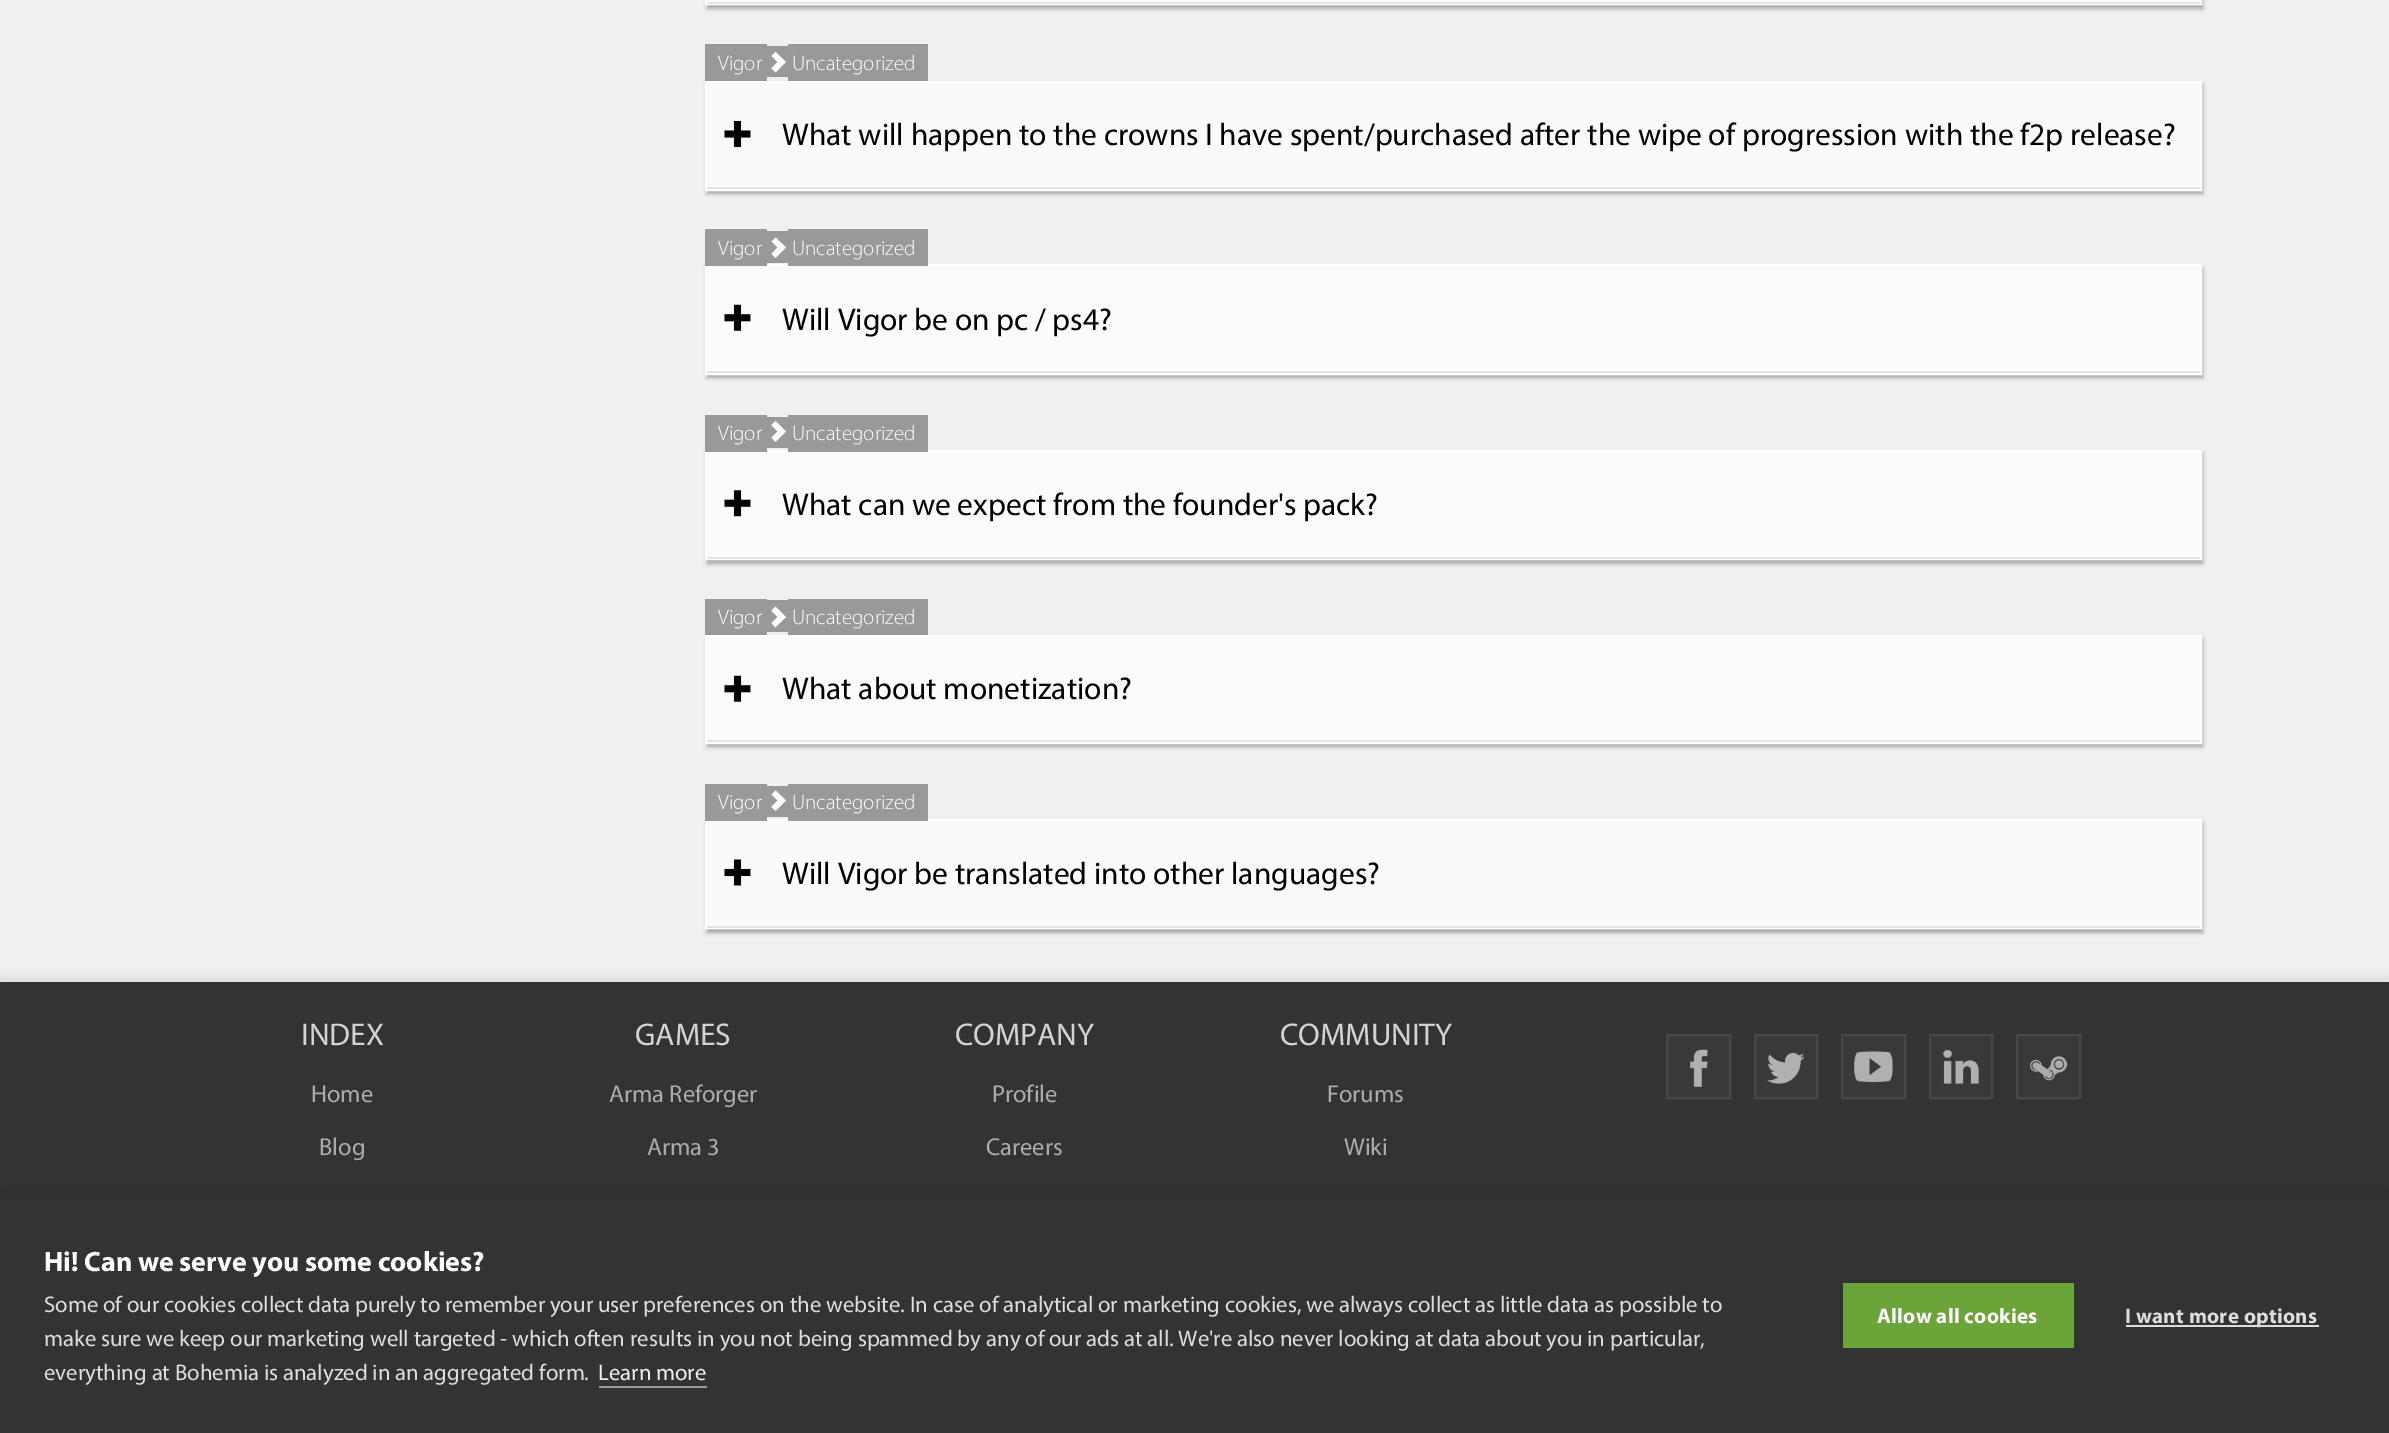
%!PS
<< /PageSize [2389 1433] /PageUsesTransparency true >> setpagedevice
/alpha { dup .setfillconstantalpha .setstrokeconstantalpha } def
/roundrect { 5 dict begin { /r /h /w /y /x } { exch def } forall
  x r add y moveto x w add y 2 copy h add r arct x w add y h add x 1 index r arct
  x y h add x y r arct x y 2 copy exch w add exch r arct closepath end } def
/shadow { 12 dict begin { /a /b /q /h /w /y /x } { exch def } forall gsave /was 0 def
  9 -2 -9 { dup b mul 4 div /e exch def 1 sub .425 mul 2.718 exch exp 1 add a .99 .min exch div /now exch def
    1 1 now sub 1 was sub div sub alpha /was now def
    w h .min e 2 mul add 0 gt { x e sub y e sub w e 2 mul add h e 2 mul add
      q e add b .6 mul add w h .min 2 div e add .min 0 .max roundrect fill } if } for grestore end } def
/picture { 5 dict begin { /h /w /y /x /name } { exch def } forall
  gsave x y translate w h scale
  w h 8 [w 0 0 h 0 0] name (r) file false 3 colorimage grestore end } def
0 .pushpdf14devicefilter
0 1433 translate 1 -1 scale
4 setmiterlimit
0.941 setgray
0 0 2389 1433 rectfill
0 setgray
707 -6 1496 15 0 2 0.3 shadow
0.969 setgray
705 0 1497 2 rectfill
1 setgray
2 setlinewidth
706 -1 1495 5 rectstroke
0.4 alpha
707 0 1493 2 rectfill
1 alpha
0.894 setgray
707 2 1493 2 rectfill
0 setgray
707 84 1496 110 0 2 0.3 shadow
0.6 setgray
705 44 62 37 rectfill
767 46 21 31 rectfill
788 44 140 37 rectfill
/Myriad-Light [21 0 0 -21 0 0] selectfont
1 setgray
718 70 moveto (Vigor) show
newpath 771.5 68.5 moveto 777.5 62 lineto 771.5 56 lineto 775.5 52 lineto 786 62 lineto 775.5 72.5 lineto closepath fill
792 70 moveto (Uncategorized) show
0.969 setgray
707 83 1493 104 rectfill
1 setgray
706 82 1495 108 rectstroke
0.4 alpha
707 83 1493 104 rectfill
1 alpha
0.894 setgray
707 187 1493 2 rectfill
(img1.rgb) 724 121 27 26 picture
/Myriad-Regular [31.5 0 0 -31.5 0 0] selectfont
0 setgray
782 145 moveto (What will happen to the crowns I have spent/purchased after the wipe of progression with the f2p release?) show
707 268 1496 110 0 2 0.3 shadow
1 setgray
706 265 1495 109 rectstroke
0.6 setgray
705 229 62 37 rectfill
767 231 21 32 rectfill
788 229 140 37 rectfill
/Myriad-Light [21 0 0 -21 0 0] selectfont
1 setgray
718 255 moveto (Vigor) show
newpath 771.5 254 moveto 777.5 247.5 lineto 771.5 241.5 lineto 775.5 237.5 lineto 786 247.5 lineto 775.5 258 lineto closepath fill
792 255 moveto (Uncategorized) show
0.984 setgray
707 266 1493 105 rectfill
0.894 setgray
707 371 1493 2 rectfill
(img2.rgb) 724 304 27 27 picture
/Myriad-Regular [31.5 0 0 -31.5 0 0] selectfont
0 setgray
782 330 moveto (Will Vigor be on pc / ps4?) show
707 453 1496 111 0 2 0.3 shadow
1 setgray
706 451 1495 108 rectstroke
0.6 setgray
705 415 62 37 rectfill
767 417 21 31 rectfill
788 415 140 37 rectfill
/Myriad-Light [21 0 0 -21 0 0] selectfont
1 setgray
718 440 moveto (Vigor) show
newpath 771.5 437.5 moveto 777.5 431.5 lineto 771.5 425 lineto 775.5 421 lineto 786 431.5 lineto 775.5 442 lineto closepath fill
792 440 moveto (Uncategorized) show
0.984 setgray
707 452 1493 105 rectfill
0.894 setgray
707 557 1493 2 rectfill
(img3.rgb) 724 490 27 27 picture
/Myriad-Regular [31.5 0 0 -31.5 0 0] selectfont
0 setgray
782 515 moveto (What can we expect from the founder's pack?) show
707 639 1496 108 0 2 0.3 shadow
0.6 setgray
705 599 62 36 rectfill
767 600 21 32 rectfill
788 599 140 36 rectfill
/Myriad-Light [21 0 0 -21 0 0] selectfont
1 setgray
718 624 moveto (Vigor) show
newpath 771.5 623 moveto 777.5 617 lineto 771.5 611 lineto 775.5 606.5 lineto 786 617 lineto 775.5 627.5 lineto closepath fill
792 624 moveto (Uncategorized) show
706 636 1495 107 rectstroke
0.984 setgray
707 637 1493 103 rectfill
0.894 setgray
707 740 1493 2 rectfill
(img2.rgb) 724 675 27 27 picture
/Myriad-Regular [31.5 0 0 -31.5 0 0] selectfont
0 setgray
782 699 moveto (What about monetization?) show
707 823 1496 110 0 2 0.3 shadow
0.969 setgray
707 821 1493 105 rectfill
1 setgray
706 820 1495 108 rectstroke
0.6 setgray
705 784 62 37 rectfill
767 786 21 31 rectfill
788 784 140 37 rectfill
/Myriad-Light [21 0 0 -21 0 0] selectfont
1 setgray
718 809 moveto (Vigor) show
newpath 771.5 807 moveto 777.5 800.5 lineto 771.5 794.5 lineto 775.5 790.5 lineto 786 800.5 lineto 775.5 811 lineto closepath fill
792 809 moveto (Uncategorized) show
0.4 alpha
707 821 1493 105 rectfill
1 alpha
0.894 setgray
707 926 1493 2 rectfill
(img4.rgb) 724 859 27 27 picture
/Myriad-Regular [31.5 0 0 -31.5 0 0] selectfont
0 setgray
782 884 moveto (Will Vigor be translated into other languages?) show
-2 975 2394 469 0 3.5 0.06 shadow
0.2 setgray
0 982 2389 217 rectfill
0.827 setgray
301 1045 moveto (INDEX) show
/Myriad-Regular [24.5 0 0 -24.5 0 0] selectfont
0.671 setgray
311 1102 moveto (Home) show
319 1155 moveto (Blog) show
/Myriad-Regular [31.5 0 0 -31.5 0 0] selectfont
0.827 setgray
635 1045 moveto (GAMES) show
/Myriad-Regular [24.5 0 0 -24.5 0 0] selectfont
0.671 setgray
609 1102 moveto (Arma Reforger) show
647 1155 moveto (Arma 3) show
/Myriad-Regular [31.5 0 0 -31.5 0 0] selectfont
0.827 setgray
955 1045 moveto (COMPANY) show
/Myriad-Regular [24.5 0 0 -24.5 0 0] selectfont
0.671 setgray
992 1102 moveto (Profile) show
986 1155 moveto (Careers) show
/Myriad-Regular [31.5 0 0 -31.5 0 0] selectfont
0.827 setgray
1280 1045 moveto (COMMUNITY) show
/Myriad-Regular [24.5 0 0 -24.5 0 0] selectfont
0.671 setgray
1327 1102 moveto (Forums) show
1344 1155 moveto (Wiki) show
0.227 0.224 0.224 setrgbcolor
newpath 1667 1035 moveto 1730 1035 lineto 1730 1098 lineto 1667 1098 lineto closepath gsave fill grestore
0.282 setgray
stroke
(img5.rgb) 1690 1049 18 38 picture
0.227 0.224 0.224 setrgbcolor
newpath 1755 1035 moveto 1817 1035 lineto 1817 1098 lineto 1755 1098 lineto closepath gsave fill grestore
0.282 setgray
stroke
(img6.rgb) 1767 1052 38 32 picture
0.227 0.224 0.224 setrgbcolor
newpath 1842 1035 moveto 1905 1035 lineto 1905 1098 lineto 1842 1098 lineto closepath gsave fill grestore
0.282 setgray
stroke
(img7.rgb) 1854 1051 39 31 picture
0.227 0.224 0.224 setrgbcolor
newpath 1930 1035 moveto 1992 1035 lineto 1992 1098 lineto 1930 1098 lineto closepath gsave fill grestore
0.282 setgray
stroke
(img8.rgb) 1943 1049 36 35 picture
0.227 0.224 0.224 setrgbcolor
newpath 2017 1035 moveto 2080 1035 lineto 2080 1098 lineto 2017 1098 lineto closepath gsave fill grestore
0.282 setgray
stroke
(img9.rgb) 2030 1056 38 25 picture
0 setgray
0 1199 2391 234 0 17.5 0.1 shadow
0.2 setgray
0 1199 2389 234 rectfill
/Myriad-Bold [28 0 0 -28 0 0] selectfont
1 setgray
44 1271 moveto (Hi! Can we serve you some cookies?) show
/Myriad-Regular [22.75 0 0 -22.75 0 0] selectfont
0.867 setgray
44 1312 moveto (Some of our cookies collect data purely to remember your user preferences on the website. In case of analytical or marketing cookies, we always collect as little data as possible to) show
44 1346 moveto (make sure we keep our marketing well targeted - which often results in you not being spammed by any of our ads at all. We're also never looking at data about you in particular,) show
44 1380 moveto (everything at Bohemia is analyzed in an aggregated form.) show
0.933 setgray
598 1380 moveto (Learn more) show
0.6 setgray
599 1386 108 2 rectfill
0.42 0.647 0.224 setrgbcolor
1843 1283 231 65 rectfill
/Myriad-Bold [21 0 0 -21 0 0] selectfont
1 setgray
1877 1323 moveto 0.3 0 (Allow all cookies) ashow
0.867 setgray
2126 1325 193 2 rectfill
2125 1323 moveto 0.3 0 (I want more options) ashow
.poppdf14devicefilter showpage
